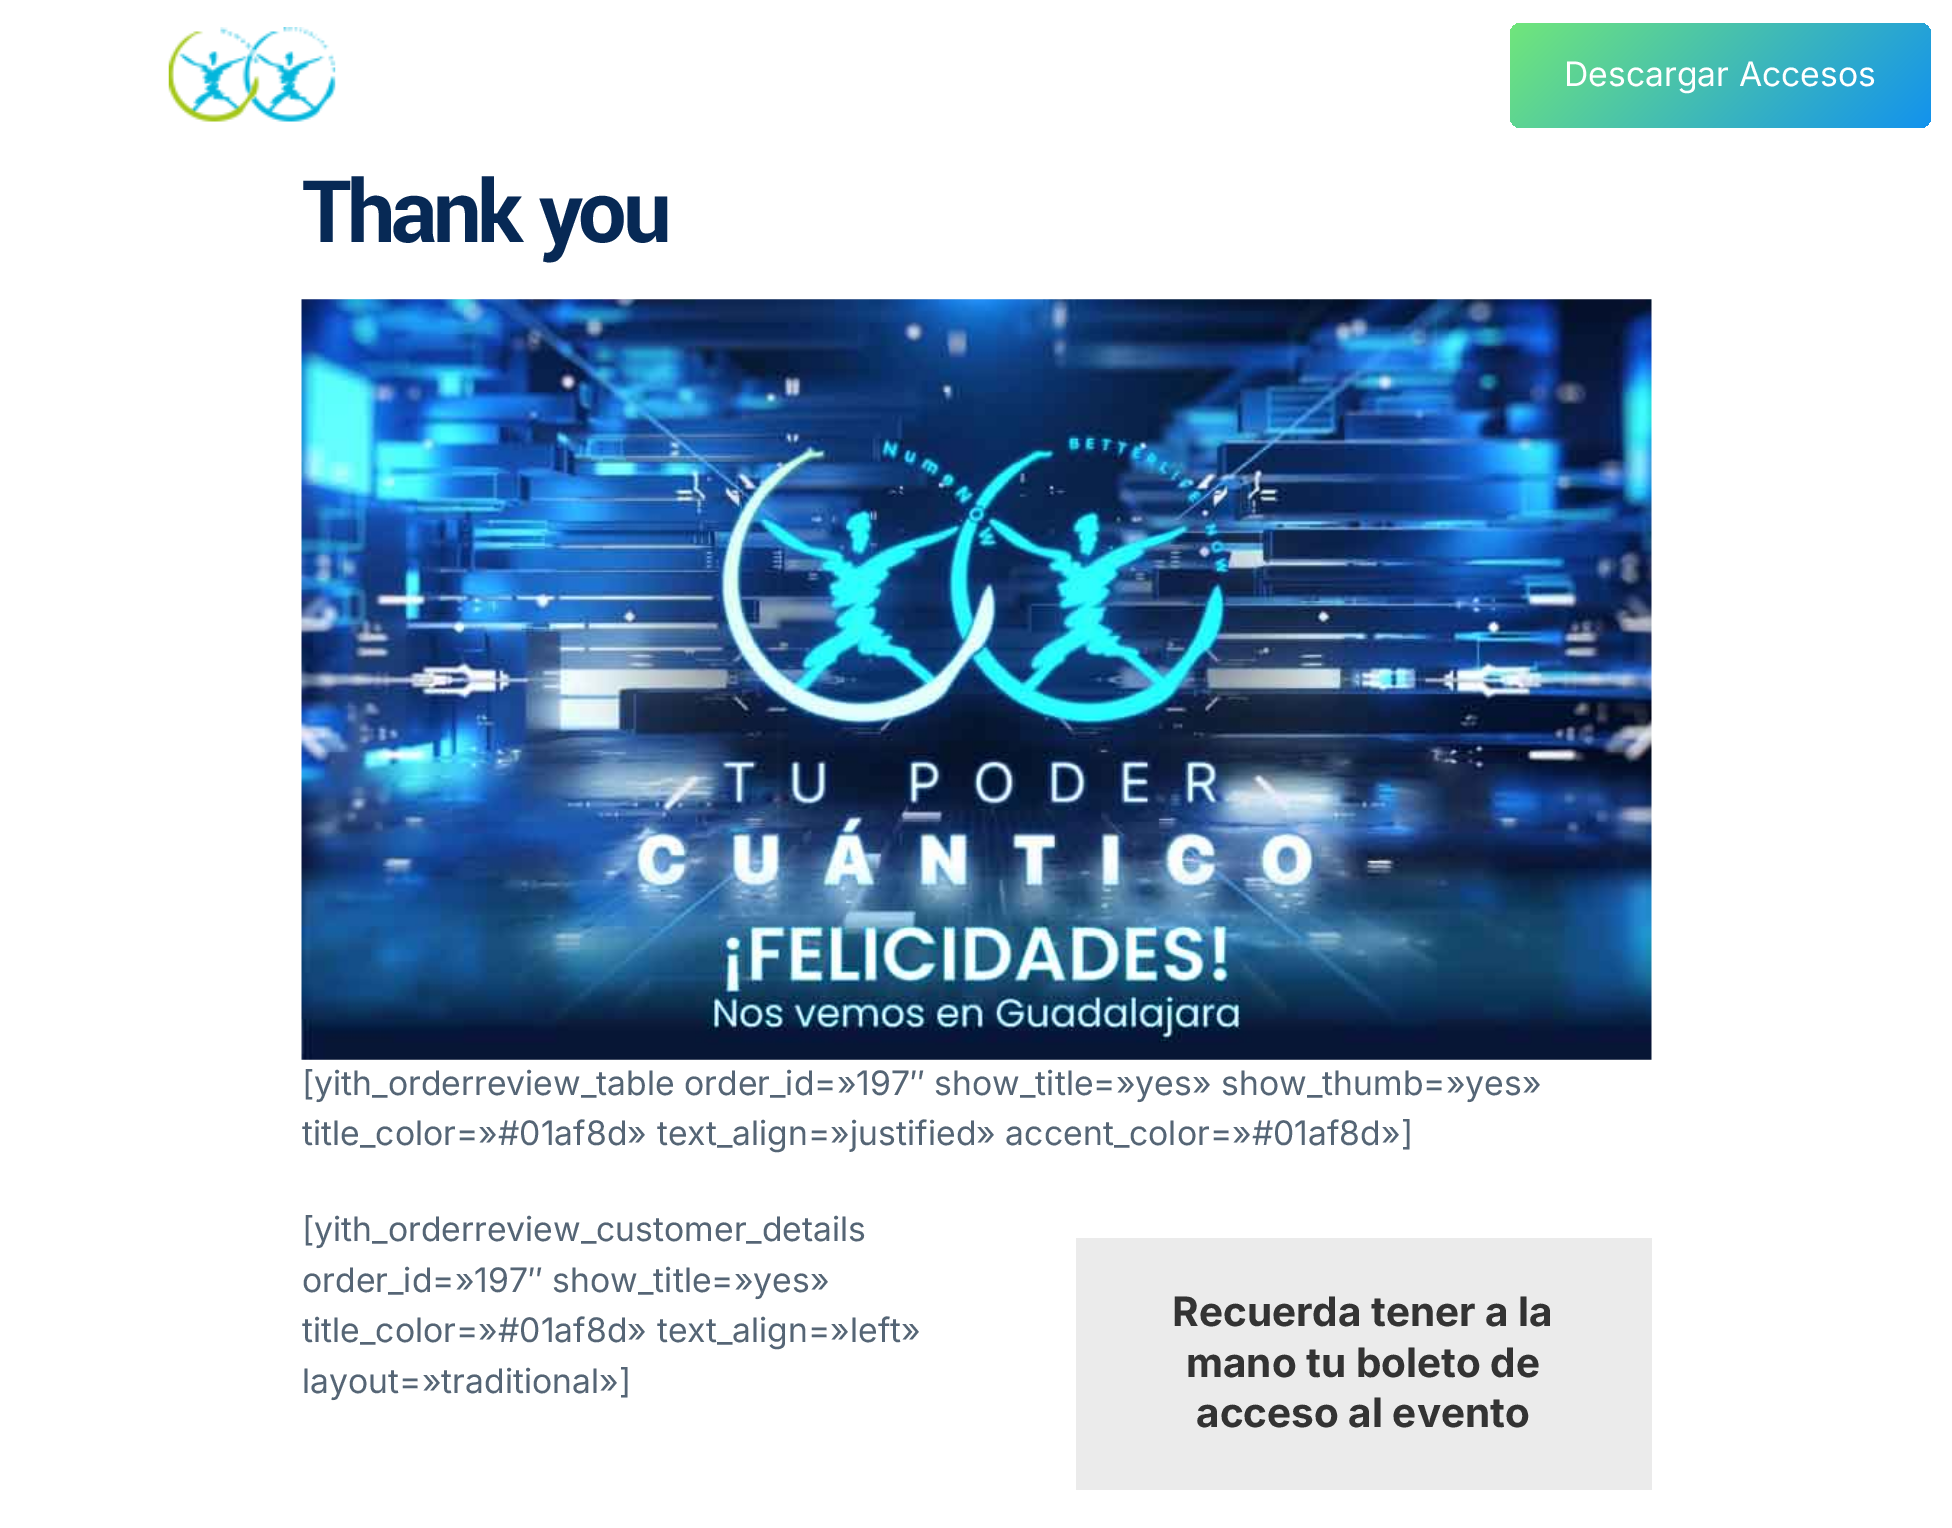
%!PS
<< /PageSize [1952 1528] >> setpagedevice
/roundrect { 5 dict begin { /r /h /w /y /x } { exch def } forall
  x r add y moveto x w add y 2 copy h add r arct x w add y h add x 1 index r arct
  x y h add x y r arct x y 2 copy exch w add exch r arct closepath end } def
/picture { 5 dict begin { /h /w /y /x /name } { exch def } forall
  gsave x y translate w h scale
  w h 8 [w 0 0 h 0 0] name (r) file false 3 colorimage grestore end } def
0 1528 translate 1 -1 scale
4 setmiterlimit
1 setgray
0 0 1952 1528 rectfill
(img1.rgb) 168 27 168 95 picture
gsave 1510 23 421 105 11 roundrect clip newpath
<< /ShadingType 2 /ColorSpace /DeviceRGB /Coords [1589 -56 1852 207] /Extend [true true] /Function << /FunctionType 2 /Domain [0 1] /C0 [0.443 0.902 0.482] /C1 [0.071 0.573 0.933] /N 1 >> >> shfill grestore
/Inter-Regular [33.75 0 0 -33.75 0 0] selectfont
1564 86 moveto (Descargar Accesos) show
/Yantramanav-Bold [96 0 0 -96 0 0] selectfont
0.027 0.161 0.333 setrgbcolor
302 242 moveto -4.5 0 (Thank you) ashow
(img2.rgb) 301 299 1351 761 picture
/Inter-Regular [33.75 0 0 -33.75 0 0] selectfont
0.333 0.396 0.459 setrgbcolor
302 1095 moveto ([yith_orderreview_table order_id=»197″ show_title=»yes» show_thumb=»yes») show
302 1145 moveto (title_color=»#01af8d» text_align=»justified» accent_color=»#01af8d»]) show
302 1241 moveto ([yith_orderreview_customer_details) show
302 1292 moveto (order_id=»197″ show_title=»yes») show
302 1342 moveto (title_color=»#01af8d» text_align=»left») show
302 1393 moveto (layout=»traditional»]) show
0.922 setgray
1076 1238 576 252 rectfill
/Inter-Bold [40.5 0 0 -40.5 0 0] selectfont
0.2 setgray
1172 1326 moveto (Recuerda tener a la) show
1186 1377 moveto (mano tu boleto de) show
1196 1427 moveto (acceso al evento) show
showpage
